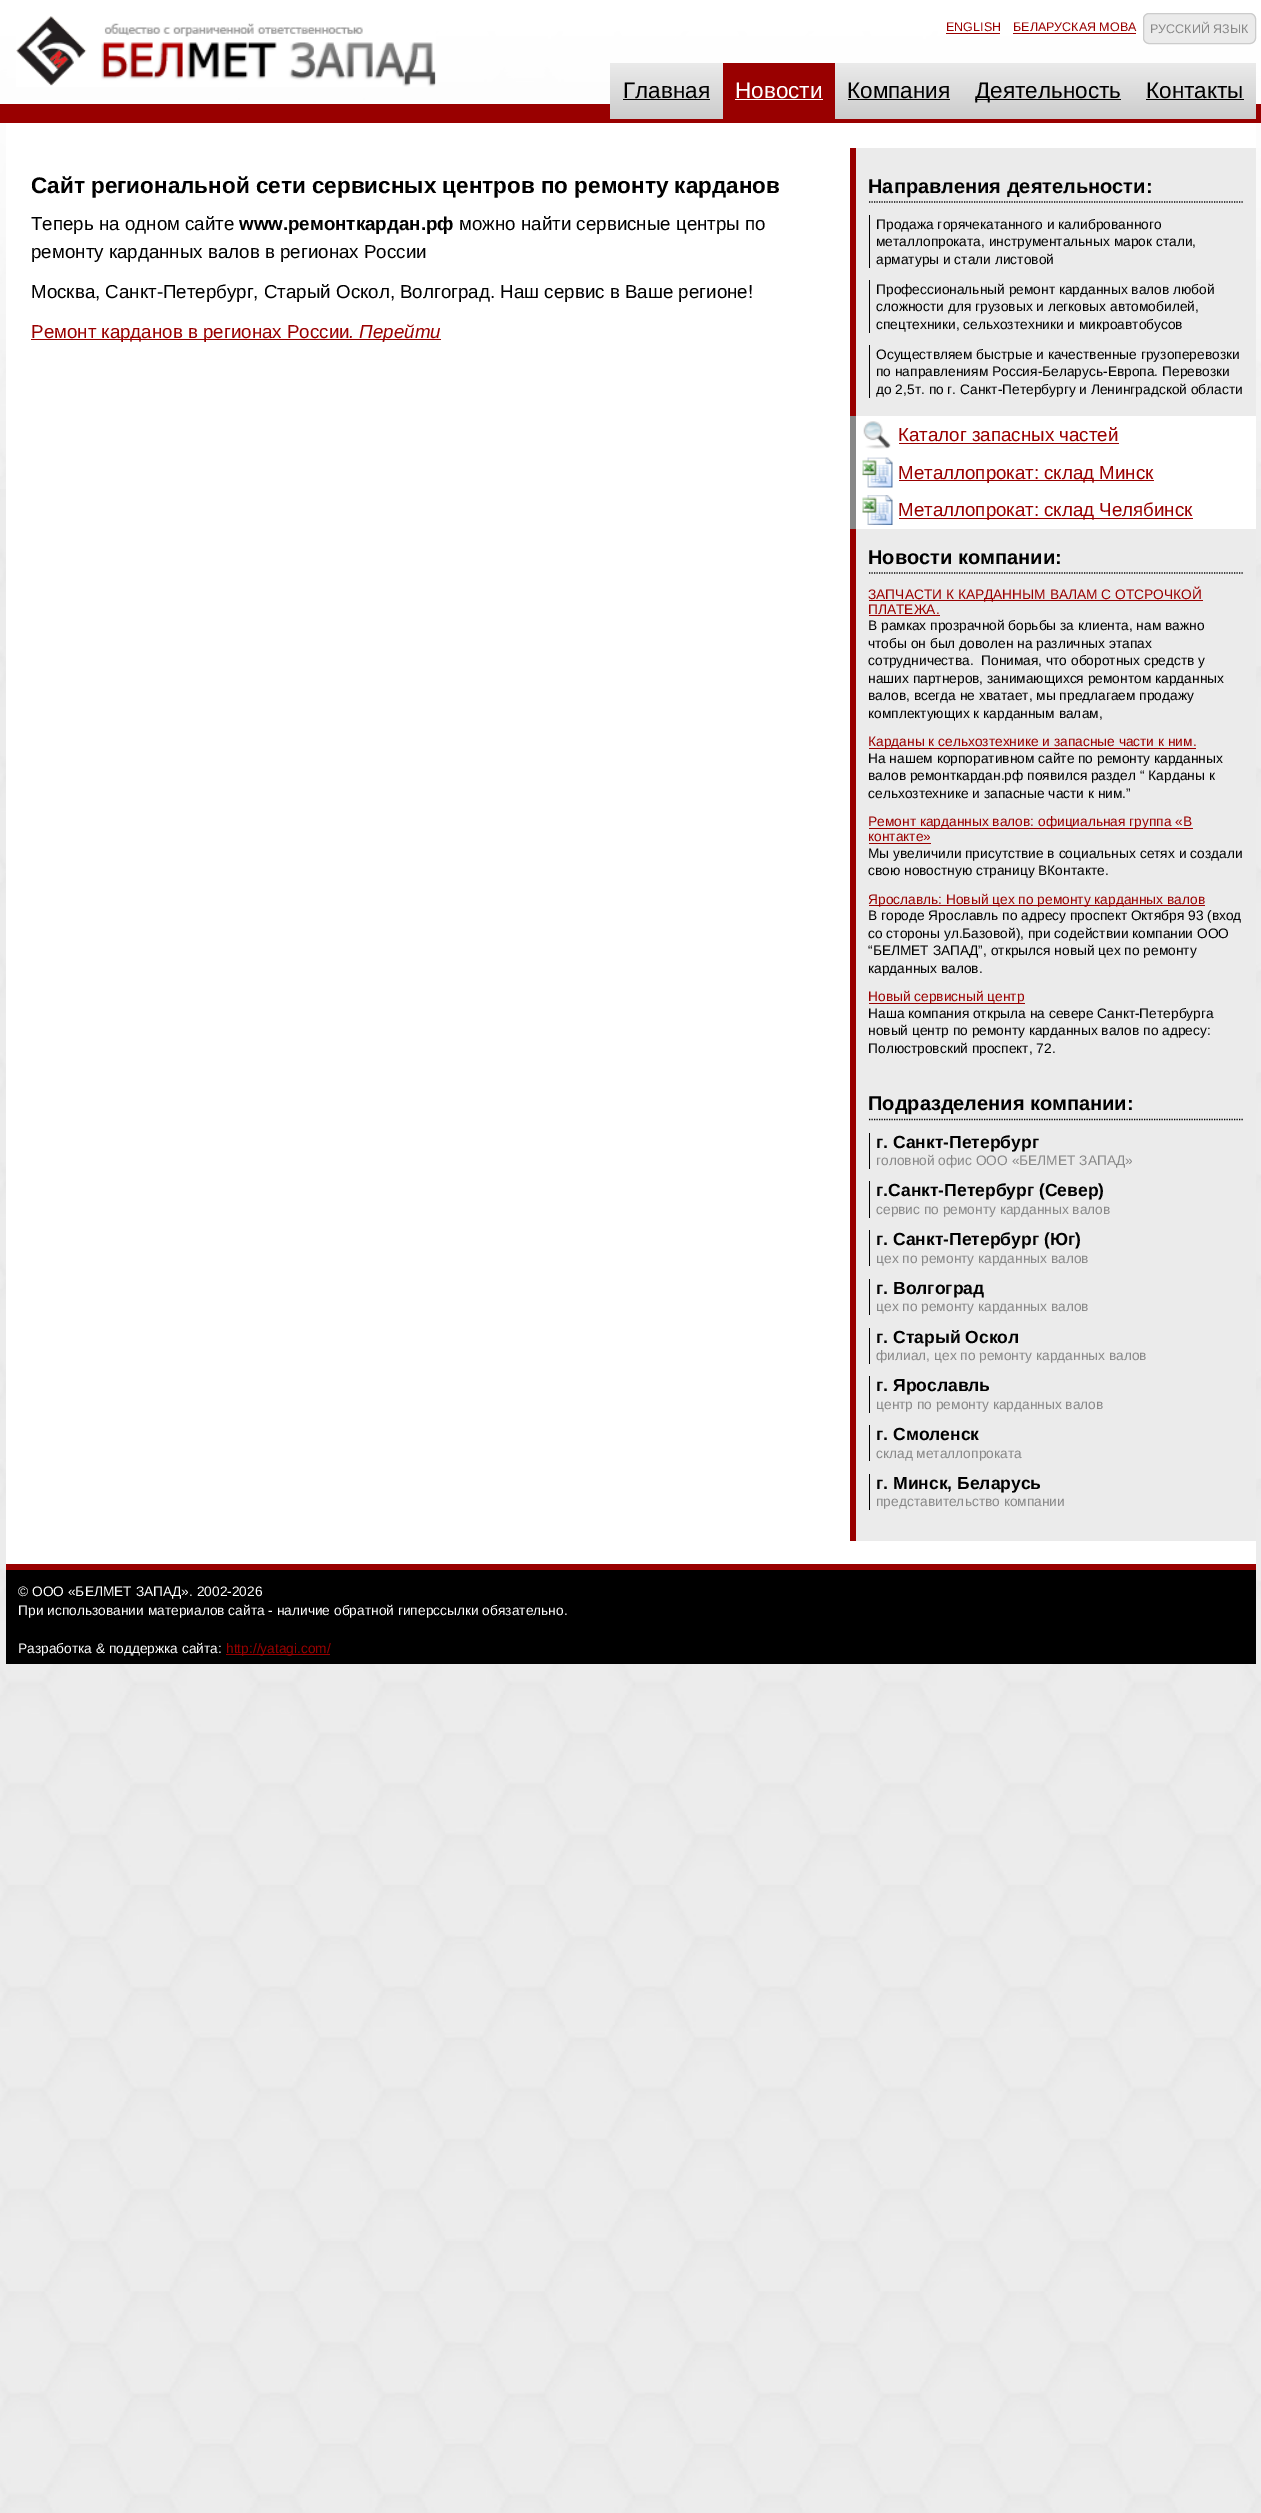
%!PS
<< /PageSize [1261 2513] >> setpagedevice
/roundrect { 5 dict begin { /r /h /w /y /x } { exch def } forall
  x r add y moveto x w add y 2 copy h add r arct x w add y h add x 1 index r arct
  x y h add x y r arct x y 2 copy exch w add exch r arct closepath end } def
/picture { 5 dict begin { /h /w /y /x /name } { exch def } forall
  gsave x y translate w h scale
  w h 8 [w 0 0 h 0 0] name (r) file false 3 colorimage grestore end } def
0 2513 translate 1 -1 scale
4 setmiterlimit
1 setgray
0 0 1261 2513 rectfill
(img1.rgb) 0 14 1261 2499 picture
(img2.rgb) 0 0 1261 489 picture
(img3.rgb) 16 16 420 71 picture
/LiberationSans-Regular [12.5 0 0 -12.5 0 0] selectfont
0.6 0 0 setrgbcolor
946 31 moveto (ENGLISH) show
946 33 54 1 rectfill
1013 31 moveto (БЕЛАРУСКАЯ МОВА) show
1013 33 123 1 rectfill
0.922 setgray
1143.5 13.5 112 30 5.5 roundrect gsave fill grestore
0.8 setgray
stroke
0.533 setgray
1150 33 moveto (РУССКИЙ ЯЗЫК) show
0.6 0 0 setrgbcolor
0 104 1261 19 rectfill
gsave newpath 610 63 moveto 1256 63 lineto 1256 119 lineto 610 119 lineto closepath clip newpath
<< /ShadingType 2 /ColorSpace /DeviceRGB /Coords [610 63 610 119] /Extend [true true] /Function << /FunctionType 2 /Domain [0 1] /C0 [0.922 0.922 0.922] /C1 [0.8 0.8 0.8] /N 1 >> >> shfill grestore
/LiberationSans-Regular [22.5 0 0 -22.5 0 0] selectfont
0 setgray
623 98 moveto (Главная) show
623 99 87 1 rectfill
0.6 0 0 setrgbcolor
723 63 112 56 rectfill
1 setgray
735 98 moveto (Новости) show
735 99 88 1 rectfill
0 setgray
847 98 moveto (Компания) show
848 99 102 1 rectfill
975 99 146 1 rectfill
975 98 moveto (Деятельность) show
1146 98 moveto (Контакты) show
1146 99 98 1 rectfill
1 setgray
6 123 1250 1441 rectfill
/LiberationSans-Bold [22.5 0 0 -22.5 0 0] selectfont
0 setgray
31 193 moveto (Сайт региональной сети сервисных центров по ремонту карданов) show
/LiberationSans-Regular [18.75 0 0 -18.75 0 0] selectfont
31 230 moveto (Теперь на одном сайте) show
/LiberationSans-Bold [18.75 0 0 -18.75 0 0] selectfont
239 230 moveto (www.ремонткардан.рф) show
/LiberationSans-Regular [18.75 0 0 -18.75 0 0] selectfont
459 230 moveto (можно найти сервисные центры по) show
31 258 moveto (ремонту карданных валов в регионах России) show
31 298 moveto (Москва, Санкт-Петербург, Старый Оскол, Волгоград. Наш сервис в Ваше регионе!) show
0.6 0 0 setrgbcolor
31 339 410 1 rectfill
31 338 moveto (Ремонт карданов в регионах России) show
/LiberationSans-Italic [18.75 0 0 -18.75 0 0] selectfont
349 338 moveto (. Перейти) show
0.922 setgray
856 148 400 1393 rectfill
0.6 0 0 setrgbcolor
850 148 6 1393 rectfill
0 setgray
1.2 setlinewidth
[1.25 1.25] 0 setdash
newpath 869 202 moveto 1244 202 lineto stroke
/LiberationSans-Bold [20 0 0 -20 0 0] selectfont
868 193 moveto (Направления деятельности:) show
869 215 1 53 rectfill
/LiberationSans-Regular [13.75 0 0 -13.75 0 0] selectfont
876 229 moveto (Продажа горячекатанного и калиброванного) show
876 246 moveto (металлопроката, инструментальных марок стали,) show
876 264 moveto (арматуры и стали листовой) show
869 280 1 53 rectfill
876 294 moveto (Профессиональный ремонт карданных валов любой) show
876 311 moveto (сложности для грузовых и легковых автомобилей,) show
876 329 moveto (спецтехники, сельхозтехники и микроавтобусов) show
869 345 1 53 rectfill
876 359 moveto (Осуществляем быстрые и качественные грузоперевозки) show
876 376 moveto (по направлениям Россия-Беларусь-Европа. Перевозки) show
876 394 moveto (до 2,5т. по г. Санкт-Петербургу и Ленинградской области) show
1 setgray
856 416 400 113 rectfill
0.533 setgray
850 416 6 113 rectfill
(img4.rgb) 863 421 28 28 picture
/LiberationSans-Regular [18.75 0 0 -18.75 0 0] selectfont
0.6 0 0 setrgbcolor
898 441 moveto (Каталог запасных частей) show
899 443 220 1 rectfill
(img5.rgb) 862 457 31 31 picture
899 480 255 1 rectfill
898 479 moveto (Металлопрокат: склад Минск) show
(img6.rgb) 862 495 31 30 picture
899 518 294 1 rectfill
898 516 moveto (Металлопрокат: склад Челябинск) show
0 setgray
newpath 869 573 moveto 1244 573 lineto stroke
/LiberationSans-Bold [20 0 0 -20 0 0] selectfont
868 564 moveto (Новости компании:) show
0.6 0 0 setrgbcolor
869 600 334 1 rectfill
/LiberationSans-Regular [13.75 0 0 -13.75 0 0] selectfont
868 599 moveto (ЗАПЧАСТИ К КАРДАННЫМ ВАЛАМ С ОТСРОЧКОЙ) show
868 614 moveto (ПЛАТЕЖА.) show
869 615 71 1 rectfill
0 setgray
868 630 moveto (В рамках прозрачной борьбы за клиента, нам важно) show
868 648 moveto (чтобы он был доволен на различных этапах) show
868 665 moveto (сотрудничества.  Понимая, что оборотных средств у) show
868 683 moveto (наших партнеров, занимающихся ремонтом карданных) show
868 700 moveto (валов, всегда не хватает, мы предлагаем продажу) show
868 718 moveto (комплектующих к карданным валам,) show
0.6 0 0 setrgbcolor
869 748 327 1 rectfill
868 746 moveto (Карданы к сельхозтехнике и запасные части к ним.) show
0 setgray
868 763 moveto (На нашем корпоративном сайте по ремонту карданных) show
868 780 moveto (валов ремонткардан.рф появился раздел “ Карданы к) show
868 798 moveto (сельхозтехнике и запасные части к ним.”) show
0.6 0 0 setrgbcolor
869 828 324 1 rectfill
868 826 moveto (Ремонт карданных валов: официальная группа «В) show
868 841 moveto (контакте») show
869 843 62 1 rectfill
0 setgray
868 858 moveto (Мы увеличили присутствие в социальных сетях и создали) show
868 875 moveto (свою новостную страницу ВКонтакте.) show
0.6 0 0 setrgbcolor
869 905 336 1 rectfill
868 904 moveto (Ярославль: Новый цех по ремонту карданных валов) show
0 setgray
868 920 moveto (В городе Ярославль по адресу проспект Октября 93 \(вход) show
868 938 moveto (со стороны ул.Базовой\), при содействии компании ООО) show
868 955 moveto (“БЕЛМЕТ ЗАПАД”, открылся новый цех по ремонту) show
868 973 moveto (карданных валов.) show
0.6 0 0 setrgbcolor
869 1003 156 1 rectfill
868 1001 moveto (Новый сервисный центр) show
0 setgray
868 1018 moveto (Наша компания открыла на севере Санкт-Петербурга) show
868 1035 moveto (новый центр по ремонту карданных валов по адресу:) show
868 1053 moveto (Полюстровский проспект, 72.) show
newpath 869 1119.5 moveto 1244 1119.5 lineto stroke
/LiberationSans-Bold [20 0 0 -20 0 0] selectfont
868 1110 moveto (Подразделения компании:) show
869 1133 1 36 rectfill
/LiberationSans-Bold [17.5 0 0 -17.5 0 0] selectfont
876 1148 moveto (г. Санкт-Петербург) show
/LiberationSans-Regular [13.75 0 0 -13.75 0 0] selectfont
0.533 setgray
876 1165 moveto (головной офис ООО «БЕЛМЕТ ЗАПАД») show
0 setgray
869 1181 1 37 rectfill
/LiberationSans-Bold [17.5 0 0 -17.5 0 0] selectfont
876 1196 moveto (г.Санкт-Петербург \(Север\)) show
/LiberationSans-Regular [13.75 0 0 -13.75 0 0] selectfont
0.533 setgray
876 1214 moveto (сервис по ремонту карданных валов) show
0 setgray
869 1230 1 36 rectfill
/LiberationSans-Bold [17.5 0 0 -17.5 0 0] selectfont
876 1245 moveto (г. Санкт-Петербург \(Юг\)) show
/LiberationSans-Regular [13.75 0 0 -13.75 0 0] selectfont
0.533 setgray
876 1263 moveto (цех по ремонту карданных валов) show
0 setgray
869 1279 1 36 rectfill
/LiberationSans-Bold [17.5 0 0 -17.5 0 0] selectfont
876 1294 moveto (г. Волгоград) show
/LiberationSans-Regular [13.75 0 0 -13.75 0 0] selectfont
0.533 setgray
876 1311 moveto (цех по ремонту карданных валов) show
0 setgray
869 1328 1 36 rectfill
/LiberationSans-Bold [17.5 0 0 -17.5 0 0] selectfont
876 1343 moveto (г. Старый Оскол) show
/LiberationSans-Regular [13.75 0 0 -13.75 0 0] selectfont
0.533 setgray
876 1360 moveto (филиал, цех по ремонту карданных валов) show
0 setgray
869 1376 1 37 rectfill
/LiberationSans-Bold [17.5 0 0 -17.5 0 0] selectfont
876 1391 moveto (г. Ярославль) show
/LiberationSans-Regular [13.75 0 0 -13.75 0 0] selectfont
0.533 setgray
876 1409 moveto (центр по ремонту карданных валов) show
0 setgray
869 1425 1 36 rectfill
/LiberationSans-Bold [17.5 0 0 -17.5 0 0] selectfont
876 1440 moveto (г. Смоленск) show
/LiberationSans-Regular [13.75 0 0 -13.75 0 0] selectfont
0.533 setgray
876 1458 moveto (склад металлопроката) show
0 setgray
869 1474 1 36 rectfill
/LiberationSans-Bold [17.5 0 0 -17.5 0 0] selectfont
876 1489 moveto (г. Минск, Беларусь) show
/LiberationSans-Regular [13.75 0 0 -13.75 0 0] selectfont
0.533 setgray
876 1506 moveto (представительство компании) show
0 setgray
6 1570 1250 94 rectfill
0.6 0 0 setrgbcolor
6 1564 1250 6 rectfill
1 setgray
18 1596 moveto (© ООО «БЕЛМЕТ ЗАПАД». 2002-2026) show
18 1615 moveto (При использовании материалов сайта - наличие обратной гиперссылки обязательно.) show
18 1653 moveto (Разработка & поддержка сайта:) show
0.6 0 0 setrgbcolor
226 1654 104 1 rectfill
226 1653 moveto (http://yatagi.com/) show
showpage
